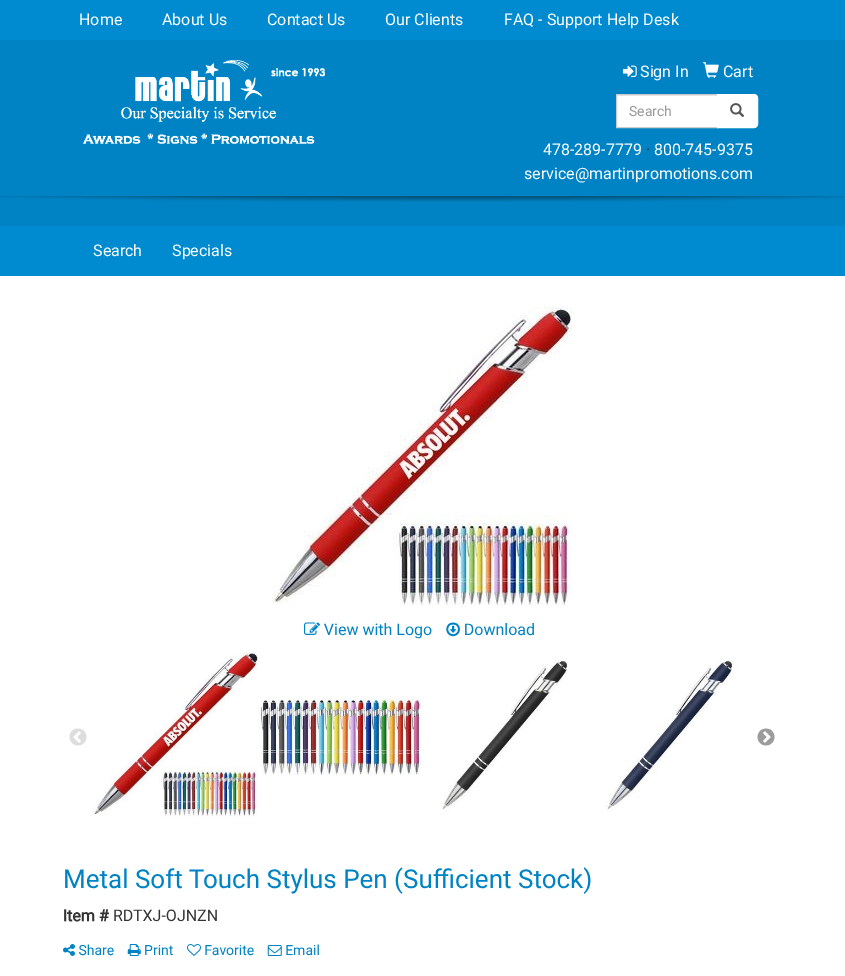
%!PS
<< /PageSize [845 976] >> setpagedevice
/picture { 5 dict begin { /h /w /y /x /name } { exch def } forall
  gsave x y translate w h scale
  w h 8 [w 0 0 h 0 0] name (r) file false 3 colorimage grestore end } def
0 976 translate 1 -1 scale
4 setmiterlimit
0 0.514 0.769 setrgbcolor
0 0 845 976 rectfill
0 0.541 0.812 setrgbcolor
0 0 845 40 rectfill
/Roboto-Regular [16 0 0 -16 0 0] selectfont
1 setgray
79 25 moveto (Home) show
162 25 moveto (About Us) show
267 25 moveto (Contact Us) show
385 25 moveto (Our Clients) show
504 25 moveto (FAQ - Support Help Desk) show
(img1.rgb) 83 60 242 84 picture
(img2.rgb) 623 65 14 12 picture
640 77 moveto (Sign In) show
(img3.rgb) 703 62 16 16 picture
723 77 moveto (Cart) show
617 96 100 31 rectfill
0.925 setgray
617 95 100 1 rectfill
0.8 setgray
616.5 94.5 101 33 rectstroke
/Roboto-Regular [14 0 0 -14 0 0] selectfont
0.6 setgray
629 116 moveto (Search) show
1 setgray
newpath 717.5 94.5 moveto 754 94.5 lineto 756 94.5 757.5 96 757.5 98 curveto 757.5 124 lineto 757.5 126 756 127.5 754 127.5 curveto 717.5 127.5 lineto closepath gsave fill grestore
stroke
(img4.rgb) 730 103 15 14 picture
/Roboto-Regular [16 0 0 -16 0 0] selectfont
543 155 moveto (478-289-7779) show
0.2 setgray
646 155 moveto (·) show
1 setgray
654 155 moveto (800-745-9375) show
524 179 moveto (service@martinpromotions.com) show
(img5.rgb) 0 196 845 6 picture
0 0.541 0.812 setrgbcolor
0 226 845 50 rectfill
1 setgray
93 256 moveto (Search) show
172 256 moveto (Specials) show
0 276 845 700 rectfill
(img6.rgb) 63 307 712 649 picture
showpage
